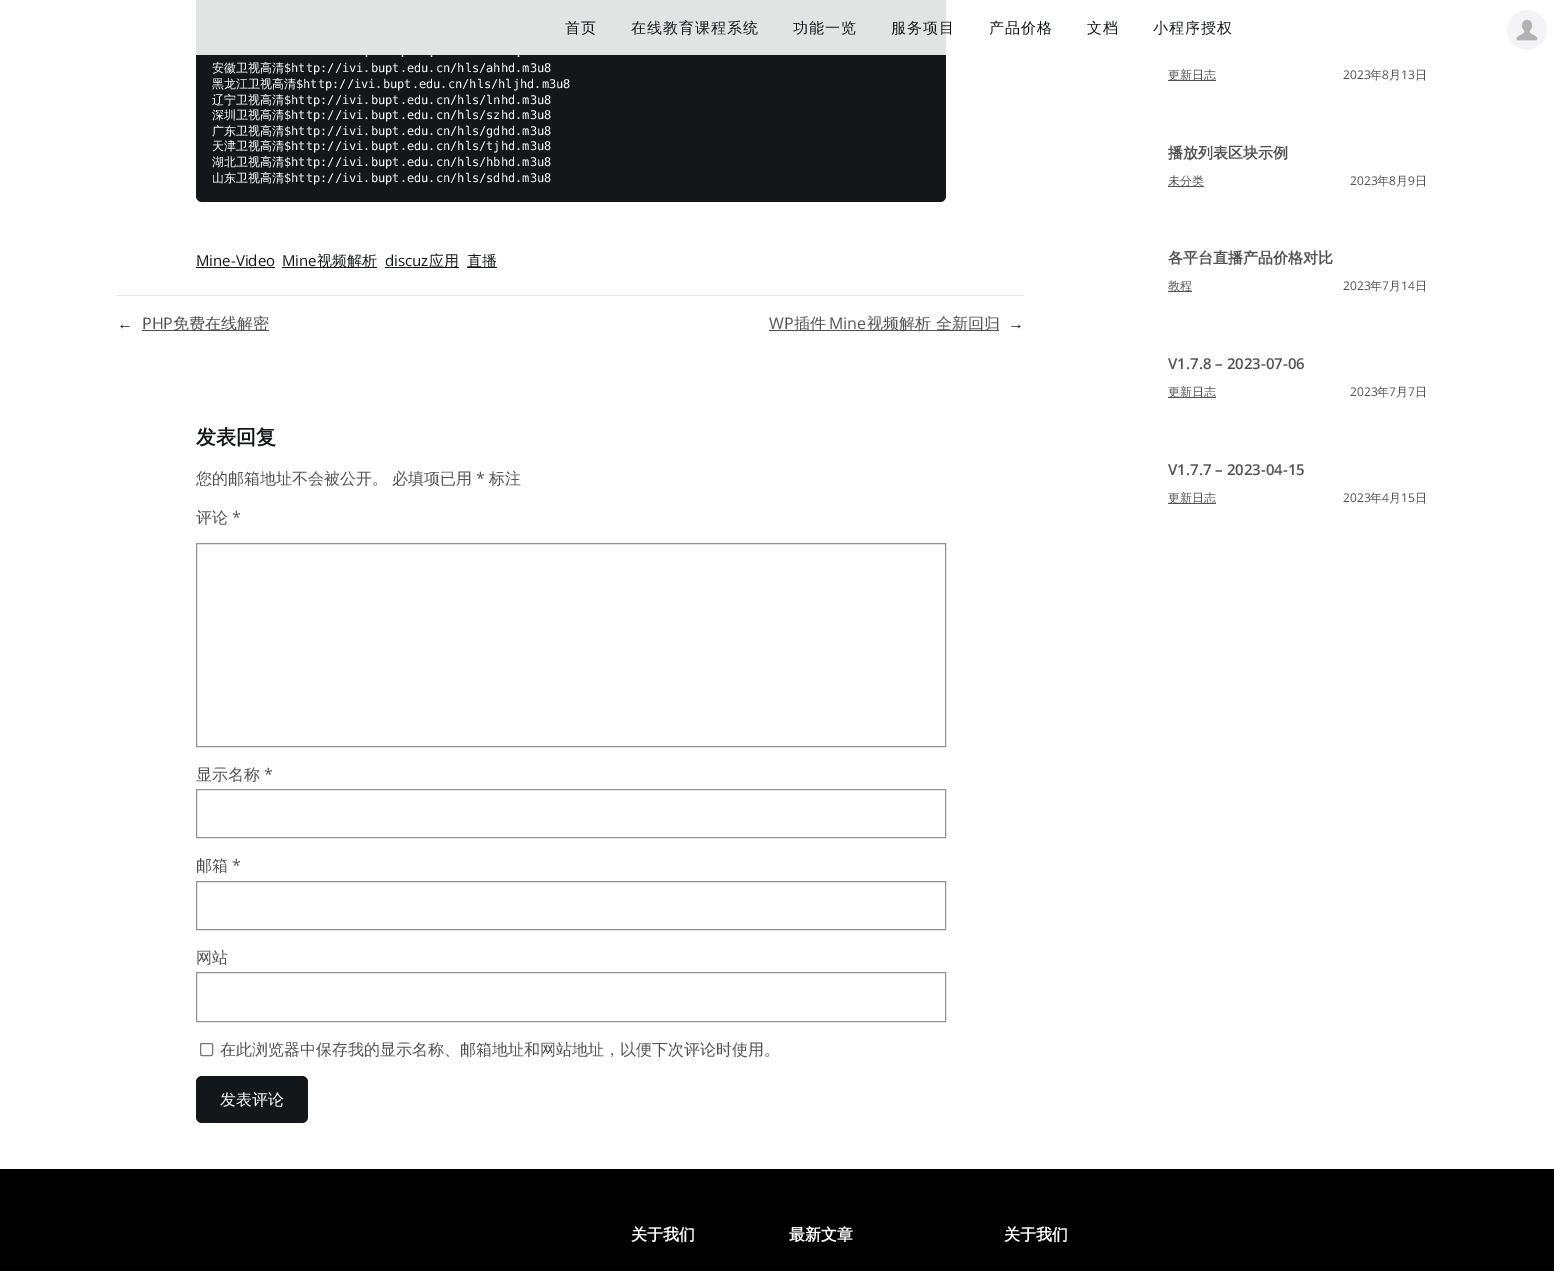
%!PS
<< /PageSize [1554 1271] /PageUsesTransparency true >> setpagedevice
/alpha { dup .setfillconstantalpha .setstrokeconstantalpha } def
/roundrect { 5 dict begin { /r /h /w /y /x } { exch def } forall
  x r add y moveto x w add y 2 copy h add r arct x w add y h add x 1 index r arct
  x y h add x y r arct x y 2 copy exch w add exch r arct closepath end } def
/picture { 5 dict begin { /h /w /y /x /name } { exch def } forall
  gsave x y translate w h scale
  w h 8 [w 0 0 h 0 0] name (r) file false 3 colorimage grestore end } def
0 .pushpdf14devicefilter
0 1271 translate 1 -1 scale
4 setmiterlimit
1 setgray
0 0 1554 1271 rectfill
0.078 0.09 0.102 setrgbcolor
196 -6 750 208 6 roundrect fill
0.88 alpha
1 setgray
196 0 750 55 rectfill
/WenQuanYiZenHei-Medium [15 0 0 -15 0 0] selectfont
1 alpha
0.078 0.09 0.102 setrgbcolor
565 33 moveto 1 0 (首页) ashow
631 33 moveto 1 0 (在线教育课程系统) ashow
793 33 moveto 1 0 (功能一览) ashow
891 33 moveto 1 0 (服务项目) ashow
989 33 moveto 1 0 (产品价格) ashow
1087 33 moveto 1 0 (文档) ashow
1153 33 moveto 1 0 (小程序授权) ashow
(img1.rgb) 1507 10 40 40 picture
/DejaVuSansMono-Regular [12 0 0 -12 0 0] selectfont
1 setgray
363 57 moveto (.) show
399 57 moveto (.) show
428 57 moveto (.) show
515 57 moveto (.) show
/WenQuanYiZenHei-Medium [12 0 0 -12 0 0] selectfont
212 72 moveto (安徽卫视高清) show
/DejaVuSansMono-Regular [12 0 0 -12 0 0] selectfont
284 72 moveto ($http://ivi.bupt.edu.cn/hls/ahhd.m3u8) show
/WenQuanYiZenHei-Medium [12 0 0 -12 0 0] selectfont
212 88 moveto (黑龙江卫视高清) show
/DejaVuSansMono-Regular [12 0 0 -12 0 0] selectfont
296 88 moveto ($http://ivi.bupt.edu.cn/hls/hljhd.m3u8) show
/WenQuanYiZenHei-Medium [12 0 0 -12 0 0] selectfont
212 104 moveto (辽宁卫视高清) show
/DejaVuSansMono-Regular [12 0 0 -12 0 0] selectfont
284 104 moveto ($http://ivi.bupt.edu.cn/hls/lnhd.m3u8) show
/WenQuanYiZenHei-Medium [12 0 0 -12 0 0] selectfont
212 119 moveto (深圳卫视高清) show
/DejaVuSansMono-Regular [12 0 0 -12 0 0] selectfont
284 119 moveto ($http://ivi.bupt.edu.cn/hls/szhd.m3u8) show
/WenQuanYiZenHei-Medium [12 0 0 -12 0 0] selectfont
212 135 moveto (广东卫视高清) show
/DejaVuSansMono-Regular [12 0 0 -12 0 0] selectfont
284 135 moveto ($http://ivi.bupt.edu.cn/hls/gdhd.m3u8) show
/WenQuanYiZenHei-Medium [12 0 0 -12 0 0] selectfont
212 150 moveto (天津卫视高清) show
/DejaVuSansMono-Regular [12 0 0 -12 0 0] selectfont
284 150 moveto ($http://ivi.bupt.edu.cn/hls/tjhd.m3u8) show
/WenQuanYiZenHei-Medium [12 0 0 -12 0 0] selectfont
212 166 moveto (湖北卫视高清) show
/DejaVuSansMono-Regular [12 0 0 -12 0 0] selectfont
284 166 moveto ($http://ivi.bupt.edu.cn/hls/hbhd.m3u8) show
/WenQuanYiZenHei-Medium [12 0 0 -12 0 0] selectfont
212 182 moveto (山东卫视高清) show
/DejaVuSansMono-Regular [12 0 0 -12 0 0] selectfont
284 182 moveto ($http://ivi.bupt.edu.cn/hls/sdhd.m3u8) show
/OpenSans-Regular [15 0 0 -15 0 0] selectfont
0.078 0.09 0.102 setrgbcolor
196 266 moveto (Mine-Video) show
196 267 79 1 rectfill
282 266 moveto (Mine) show
282 267 95 1 rectfill
/WenQuanYiZenHei-Medium [15 0 0 -15 0 0] selectfont
317 266 moveto (视频解析) show
/OpenSans-Regular [15 0 0 -15 0 0] selectfont
385 266 moveto (discuz) show
385 267 74 1 rectfill
/WenQuanYiZenHei-Medium [15 0 0 -15 0 0] selectfont
429 266 moveto (应用) show
467 267 30 1 rectfill
467 266 moveto (直播) show
0.898 0.906 0.922 setrgbcolor
117 295 907 1 rectfill
/LiberationSans-Regular [16 0 0 -16 0 0] selectfont
0.078 0.09 0.102 setrgbcolor
117 329 moveto (←) show
/OpenSans-Regular [16 0 0 -16 0 0] selectfont
0.322 setgray
142 329 moveto (PHP) show
142 330 127 1 rectfill
/WenQuanYiZenHei-Medium [16 0 0 -16 0 0] selectfont
173 329 moveto (免费在线解密) show
/OpenSans-Regular [16 0 0 -16 0 0] selectfont
769 329 moveto (WP) show
769 330 230 1 rectfill
/WenQuanYiZenHei-Medium [16 0 0 -16 0 0] selectfont
794 329 moveto (插件) show
/OpenSans-Regular [16 0 0 -16 0 0] selectfont
829 329 moveto (Mine) show
/WenQuanYiZenHei-Medium [16 0 0 -16 0 0] selectfont
867 329 moveto (视频解析 全新回归) show
/LiberationSans-Regular [16 0 0 -16 0 0] selectfont
0.078 0.09 0.102 setrgbcolor
1008 329 moveto (→) show
/WenQuanYiZenHei-Bold [20 0 0 -20 0 0] selectfont
196 444 moveto (发表回复) show
/WenQuanYiZenHei-Medium [16 0 0 -16 0 0] selectfont
0.322 setgray
196 484 moveto (您的邮箱地址不会被公开。) show
392 484 moveto (必填项已用) show
/OpenSans-Regular [16 0 0 -16 0 0] selectfont
476 484 moveto (*) show
/WenQuanYiZenHei-Medium [16 0 0 -16 0 0] selectfont
489 484 moveto (标注) show
196 523 moveto (评论) show
/OpenSans-Regular [16 0 0 -16 0 0] selectfont
232 523 moveto (*) show
0.58 setgray
196.5 543.5 749 203 rectstroke
/WenQuanYiZenHei-Medium [16 0 0 -16 0 0] selectfont
0.322 setgray
196 780 moveto (显示名称) show
/OpenSans-Regular [16 0 0 -16 0 0] selectfont
264 780 moveto (*) show
0.58 setgray
196.5 789.5 749 48 rectstroke
/WenQuanYiZenHei-Medium [16 0 0 -16 0 0] selectfont
0.322 setgray
196 871 moveto (邮箱) show
/OpenSans-Regular [16 0 0 -16 0 0] selectfont
232 871 moveto (*) show
0.58 setgray
196.5 881.5 749 48 rectstroke
/WenQuanYiZenHei-Medium [16 0 0 -16 0 0] selectfont
0.322 setgray
196 963 moveto (网站) show
0.58 setgray
196.5 972.5 749 49 rectstroke
0.463 setgray
200.5 1043.5 12 12 1.5 roundrect stroke
0.322 setgray
220 1055 moveto (在此浏览器中保存我的显示名称、邮箱地址和网站地址，以便下次评论时使用。) show
0.078 0.09 0.102 setrgbcolor
196 1076 112 47 6 roundrect fill
1 setgray
220 1105 moveto (发表评论) show
0.322 setgray
1168 80 48 1 rectfill
/WenQuanYiZenHei-Medium [12 0 0 -12 0 0] selectfont
1168 79 moveto (更新日志) show
/OpenSans-Regular [12 0 0 -12 0 0] selectfont
1343 79 moveto (2023) show
/WenQuanYiZenHei-Medium [12 0 0 -12 0 0] selectfont
1370 79 moveto (年) show
/OpenSans-Regular [12 0 0 -12 0 0] selectfont
1382 79 moveto (8) show
/WenQuanYiZenHei-Medium [12 0 0 -12 0 0] selectfont
1389 79 moveto (月) show
/OpenSans-Regular [12 0 0 -12 0 0] selectfont
1401 79 moveto (13) show
/WenQuanYiZenHei-Medium [12 0 0 -12 0 0] selectfont
1415 79 moveto (日) show
/WenQuanYiZenHei-Bold [15 0 0 -15 0 0] selectfont
1168 158 moveto (播放列表区块示例) show
1168 186 36 1 rectfill
/WenQuanYiZenHei-Medium [12 0 0 -12 0 0] selectfont
1168 185 moveto (未分类) show
/OpenSans-Regular [12 0 0 -12 0 0] selectfont
1350 185 moveto (2023) show
/WenQuanYiZenHei-Medium [12 0 0 -12 0 0] selectfont
1377 185 moveto (年) show
/OpenSans-Regular [12 0 0 -12 0 0] selectfont
1389 185 moveto (8) show
/WenQuanYiZenHei-Medium [12 0 0 -12 0 0] selectfont
1396 185 moveto (月) show
/OpenSans-Regular [12 0 0 -12 0 0] selectfont
1408 185 moveto (9) show
/WenQuanYiZenHei-Medium [12 0 0 -12 0 0] selectfont
1415 185 moveto (日) show
/WenQuanYiZenHei-Bold [15 0 0 -15 0 0] selectfont
1168 263 moveto (各平台直播产品价格对比) show
1168 291 24 1 rectfill
/WenQuanYiZenHei-Medium [12 0 0 -12 0 0] selectfont
1168 290 moveto (教程) show
/OpenSans-Regular [12 0 0 -12 0 0] selectfont
1343 290 moveto (2023) show
/WenQuanYiZenHei-Medium [12 0 0 -12 0 0] selectfont
1370 290 moveto (年) show
/OpenSans-Regular [12 0 0 -12 0 0] selectfont
1382 290 moveto (7) show
/WenQuanYiZenHei-Medium [12 0 0 -12 0 0] selectfont
1389 290 moveto (月) show
/OpenSans-Regular [12 0 0 -12 0 0] selectfont
1401 290 moveto (14) show
/WenQuanYiZenHei-Medium [12 0 0 -12 0 0] selectfont
1415 290 moveto (日) show
/OpenSans-SemiBold [15 0 0 -15 0 0] selectfont
1168 369 moveto (V1.7.8 – 2023-07-06) show
1168 397 48 1 rectfill
/WenQuanYiZenHei-Medium [12 0 0 -12 0 0] selectfont
1168 396 moveto (更新日志) show
/OpenSans-Regular [12 0 0 -12 0 0] selectfont
1350 396 moveto (2023) show
/WenQuanYiZenHei-Medium [12 0 0 -12 0 0] selectfont
1377 396 moveto (年) show
/OpenSans-Regular [12 0 0 -12 0 0] selectfont
1389 396 moveto (7) show
/WenQuanYiZenHei-Medium [12 0 0 -12 0 0] selectfont
1396 396 moveto (月) show
/OpenSans-Regular [12 0 0 -12 0 0] selectfont
1408 396 moveto (7) show
/WenQuanYiZenHei-Medium [12 0 0 -12 0 0] selectfont
1415 396 moveto (日) show
/OpenSans-SemiBold [15 0 0 -15 0 0] selectfont
1168 475 moveto (V1.7.7 – 2023-04-15) show
1168 503 48 1 rectfill
/WenQuanYiZenHei-Medium [12 0 0 -12 0 0] selectfont
1168 502 moveto (更新日志) show
/OpenSans-Regular [12 0 0 -12 0 0] selectfont
1343 502 moveto (2023) show
/WenQuanYiZenHei-Medium [12 0 0 -12 0 0] selectfont
1370 502 moveto (年) show
/OpenSans-Regular [12 0 0 -12 0 0] selectfont
1382 502 moveto (4) show
/WenQuanYiZenHei-Medium [12 0 0 -12 0 0] selectfont
1389 502 moveto (月) show
/OpenSans-Regular [12 0 0 -12 0 0] selectfont
1401 502 moveto (15) show
/WenQuanYiZenHei-Medium [12 0 0 -12 0 0] selectfont
1415 502 moveto (日) show
0 setgray
0 1169 1554 102 rectfill
/WenQuanYiZenHei-Bold [16 0 0 -16 0 0] selectfont
1 setgray
631 1240 moveto (关于我们) show
789 1240 moveto (最新文章) show
1004 1240 moveto (关于我们) show
.poppdf14devicefilter showpage
